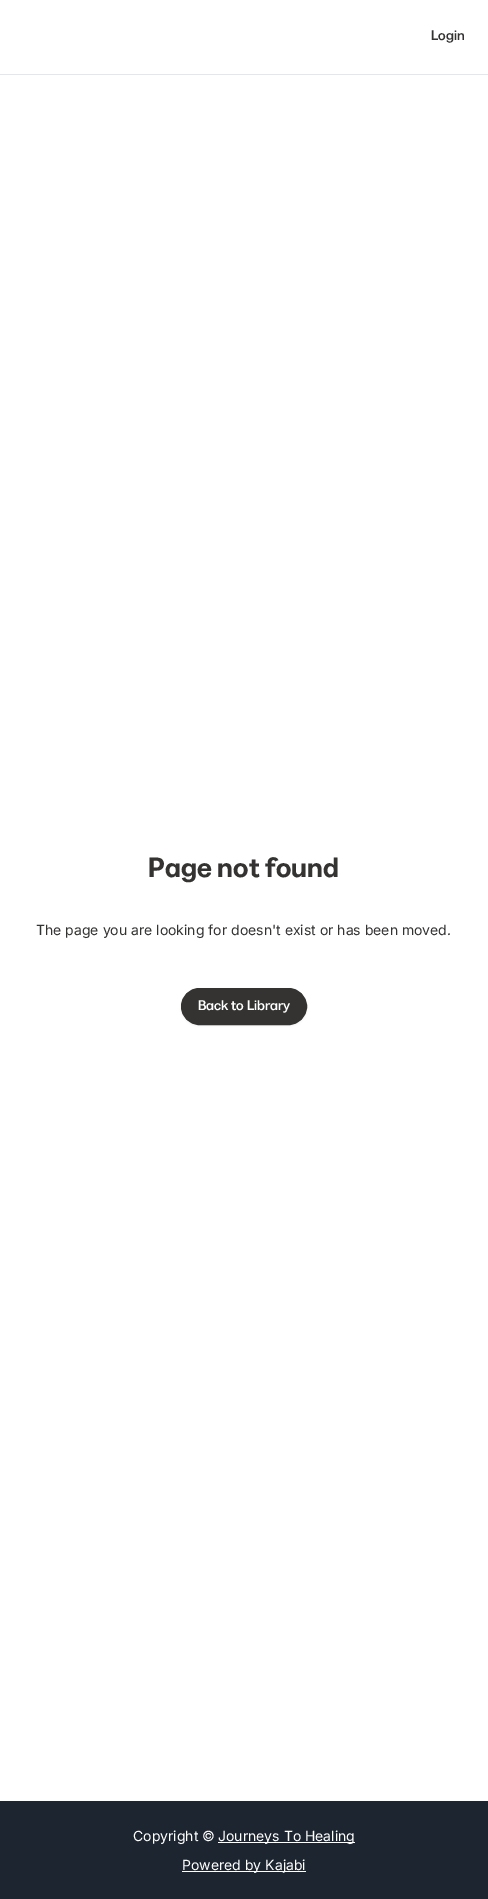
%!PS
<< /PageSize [488 1899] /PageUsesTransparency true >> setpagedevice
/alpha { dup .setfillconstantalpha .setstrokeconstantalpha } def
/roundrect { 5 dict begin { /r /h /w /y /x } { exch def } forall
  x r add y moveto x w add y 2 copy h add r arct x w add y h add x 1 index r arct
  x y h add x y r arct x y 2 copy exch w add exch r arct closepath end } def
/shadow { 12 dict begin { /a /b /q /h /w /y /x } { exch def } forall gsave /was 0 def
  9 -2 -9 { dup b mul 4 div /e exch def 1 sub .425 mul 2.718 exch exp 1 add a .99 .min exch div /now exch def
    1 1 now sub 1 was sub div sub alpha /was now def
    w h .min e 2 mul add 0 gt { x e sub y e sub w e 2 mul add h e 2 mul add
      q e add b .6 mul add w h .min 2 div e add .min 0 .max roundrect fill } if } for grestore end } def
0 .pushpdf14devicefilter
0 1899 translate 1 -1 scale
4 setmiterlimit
1 setgray
0 0 488 1899 rectfill
0.878 0.906 0.945 setrgbcolor
0 74 488 1 rectfill
/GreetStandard-Medium [14 0 0 -14 0 0] selectfont
0.204 0.2 0.196 setrgbcolor
431 40 moveto (Login) show
/GreetStandard-SemiBold [28 0 0 -28 0 0] selectfont
148 877 moveto 0.25 0 (Page not found) ashow
/Inter-Regular [14 0 0 -14 0 0] selectfont
36 935 moveto (The page you are looking for doesn't exist or has been moved.) show
0 setgray
181 989 126 37 18.5 1 0.05 shadow
0.204 0.2 0.196 setrgbcolor
181.5 988.5 125 36 18 roundrect gsave fill grestore
stroke
/GreetStandard-Medium [14 0 0 -14 0 0] selectfont
1 setgray
198 1010 moveto (Back to Library) show
0.11 0.145 0.188 setrgbcolor
0 1801 488 98 rectfill
/Inter-Regular [14 0 0 -14 0 0] selectfont
1 setgray
133 1841 moveto (Copyright ©) show
218 1842 137 1 rectfill
218 1841 moveto (Journeys To Healing) show
182 1871 124 1 rectfill
182 1870 moveto (Powered by Kajabi) show
.poppdf14devicefilter showpage
